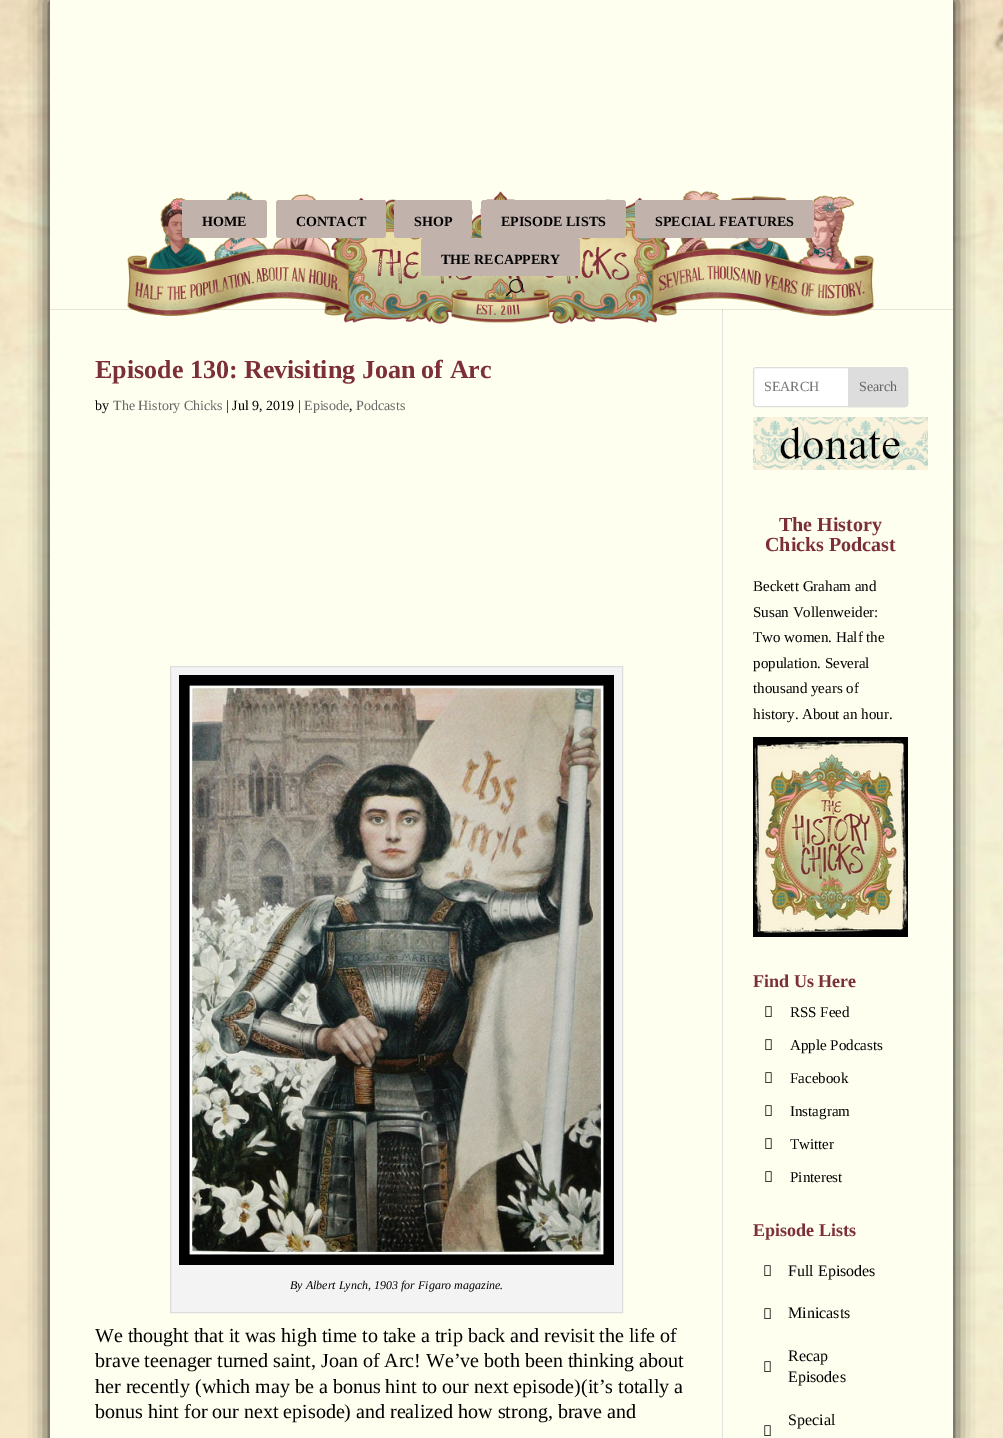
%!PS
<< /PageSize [1003 1438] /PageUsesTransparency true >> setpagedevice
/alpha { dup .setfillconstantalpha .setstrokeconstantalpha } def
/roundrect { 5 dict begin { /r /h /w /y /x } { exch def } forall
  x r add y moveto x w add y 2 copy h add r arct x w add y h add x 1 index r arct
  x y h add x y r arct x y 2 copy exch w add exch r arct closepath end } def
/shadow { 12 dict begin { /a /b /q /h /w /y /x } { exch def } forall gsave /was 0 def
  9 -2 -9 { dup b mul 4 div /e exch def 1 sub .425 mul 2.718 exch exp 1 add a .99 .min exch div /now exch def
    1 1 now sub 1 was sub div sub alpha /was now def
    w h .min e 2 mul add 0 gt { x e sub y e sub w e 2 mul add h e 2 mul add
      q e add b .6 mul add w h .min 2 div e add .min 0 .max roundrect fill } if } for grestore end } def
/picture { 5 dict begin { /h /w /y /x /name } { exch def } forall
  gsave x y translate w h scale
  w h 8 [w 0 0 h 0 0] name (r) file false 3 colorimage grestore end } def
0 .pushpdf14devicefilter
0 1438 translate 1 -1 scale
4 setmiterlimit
1 setgray
0 0 1003 1438 rectfill
(img1.rgb) 0 0 1003 1438 picture
0 setgray
50 0 903 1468 0 10 0.95 shadow
1 1 0.941 setrgbcolor
50 0 903 1438 rectfill
0.886 setgray
722 309 1 1129 rectfill
0.1 alpha
0 setgray
50 309 903 1 rectfill
1 alpha
(img2.rgb) 127 190 747 134 picture
0.757 0.698 0.671 setrgbcolor
182 200 85 38 3 roundrect fill
/LiberationSerif-Bold [14 0 0 -14 0 0] selectfont
0.008 setgray
202 226 moveto (HOME) show
0.757 0.698 0.671 setrgbcolor
276 200 110 38 3 roundrect fill
0.008 setgray
296 226 moveto (CONTACT) show
0.757 0.698 0.671 setrgbcolor
394 200 78 38 3 roundrect fill
0.008 setgray
414 226 moveto (SHOP) show
0.757 0.698 0.671 setrgbcolor
481 200 145 38 3 roundrect fill
0.008 setgray
501 226 moveto (EPISODE LISTS) show
0.757 0.698 0.671 setrgbcolor
635 200 179 38 3 roundrect fill
0.008 setgray
655 226 moveto (SPECIAL FEATURES) show
0.757 0.698 0.671 setrgbcolor
421 238 159 38 3 roundrect fill
0.008 setgray
441 264 moveto (THE RECAPPERY) show
(img3.rgb) 506 279 17 18 picture
/LiberationSerif-Bold [26 0 0 -26 0 0] selectfont
0.486 0.18 0.224 setrgbcolor
95 378 moveto (Episode 130: Revisiting Joan of Arc) show
/LiberationSerif-Regular [14 0 0 -14 0 0] selectfont
0.008 setgray
95 410 moveto (by) show
0.4 setgray
113 410 moveto (The History Chicks) show
0.008 setgray
226 410 moveto (| Jul 9, 2019 |) show
0.4 setgray
304 410 moveto (Episode) show
0.008 setgray
349 410 moveto (,) show
0.4 setgray
356 410 moveto (Podcasts) show
0.953 setgray
newpath 170.5 666.5 moveto 622.5 666.5 lineto 622.5 1312.5 lineto 170.5 1312.5 lineto closepath gsave fill grestore
0.867 setgray
stroke
(img4.rgb) 179 675 435 590 picture
/LiberationSerif-Italic [12 0 0 -12 0 0] selectfont
0.008 setgray
290 1289 moveto (By Albert Lynch, 1903 for Figaro magazine.) show
/LiberationSerif-Regular [20 0 0 -20 0 0] selectfont
95 1342 moveto (We thought that it was high time to take a trip back and revisit the life of) show
95 1367 moveto (brave teenager turned saint, Joan of Arc! We’ve both been thinking about) show
95 1393 moveto (her recently \(which may be a bonus hint to our next episode\)\(it’s totally a) show
95 1418 moveto (bonus hint for our next episode\) and realized how strong, brave and) show
1 setgray
753.5 367.5 154 39 2.5 roundrect gsave fill grestore
0.867 setgray
stroke
/LiberationSerif-Regular [14 0 0 -14 0 0] selectfont
0.459 setgray
764 391 moveto (SEARCH) show
0.867 setgray
newpath 848.5 367.5 moveto 905 367.5 lineto 906.5 367.5 907.5 368.5 907.5 370 curveto 907.5 404 lineto 907.5 405.5 906.5 406.5 905 406.5 curveto 848.5 406.5 lineto closepath gsave fill grestore
stroke
0.4 setgray
859 391 moveto (Search) show
(img5.rgb) 753 417 175 53 picture
/LiberationSerif-Bold [20 0 0 -20 0 0] selectfont
0.486 0.18 0.224 setrgbcolor
779 531 moveto (The History) show
765 551 moveto (Chicks Podcast) show
/LiberationSerif-Regular [15 0 0 -15 0 0] selectfont
0.008 setgray
753 591 moveto (Beckett Graham and) show
753 617 moveto (Susan Vollenweider:) show
753 642 moveto (Two women. Half the) show
753 668 moveto (population. Several) show
753 693 moveto (thousand years of) show
753 719 moveto (history. About an hour.) show
(img6.rgb) 753 737 155 200 picture
/LiberationSerif-Bold [18 0 0 -18 0 0] selectfont
0.486 0.18 0.224 setrgbcolor
753 987 moveto (Find Us Here) show
(img7.rgb) 765 1006 7 11 picture
/LiberationSerif-Regular [15 0 0 -15 0 0] selectfont
0.008 setgray
790 1017 moveto (RSS Feed) show
(img7.rgb) 765 1039 7 11 picture
790 1050 moveto (Apple Podcasts) show
(img7.rgb) 765 1072 7 11 picture
790 1083 moveto (Facebook) show
(img7.rgb) 765 1105 7 11 picture
790 1116 moveto (Instagram) show
(img7.rgb) 765 1138 7 11 picture
790 1149 moveto (Twitter) show
(img7.rgb) 765 1171 7 11 picture
790 1182 moveto (Pinterest) show
/LiberationSerif-Bold [18 0 0 -18 0 0] selectfont
0.486 0.18 0.224 setrgbcolor
753 1236 moveto (Episode Lists) show
(img7.rgb) 764 1265 7 11 picture
/LiberationSerif-Regular [16 0 0 -16 0 0] selectfont
0.008 setgray
788 1276 moveto (Full Episodes) show
(img7.rgb) 764 1308 7 11 picture
788 1318 moveto (Minicasts) show
(img7.rgb) 764 1361 7 11 picture
788 1361 moveto (Recap) show
788 1382 moveto (Episodes) show
788 1425 moveto (Special) show
(img7.rgb) 764 1425 7 11 picture
.poppdf14devicefilter showpage
